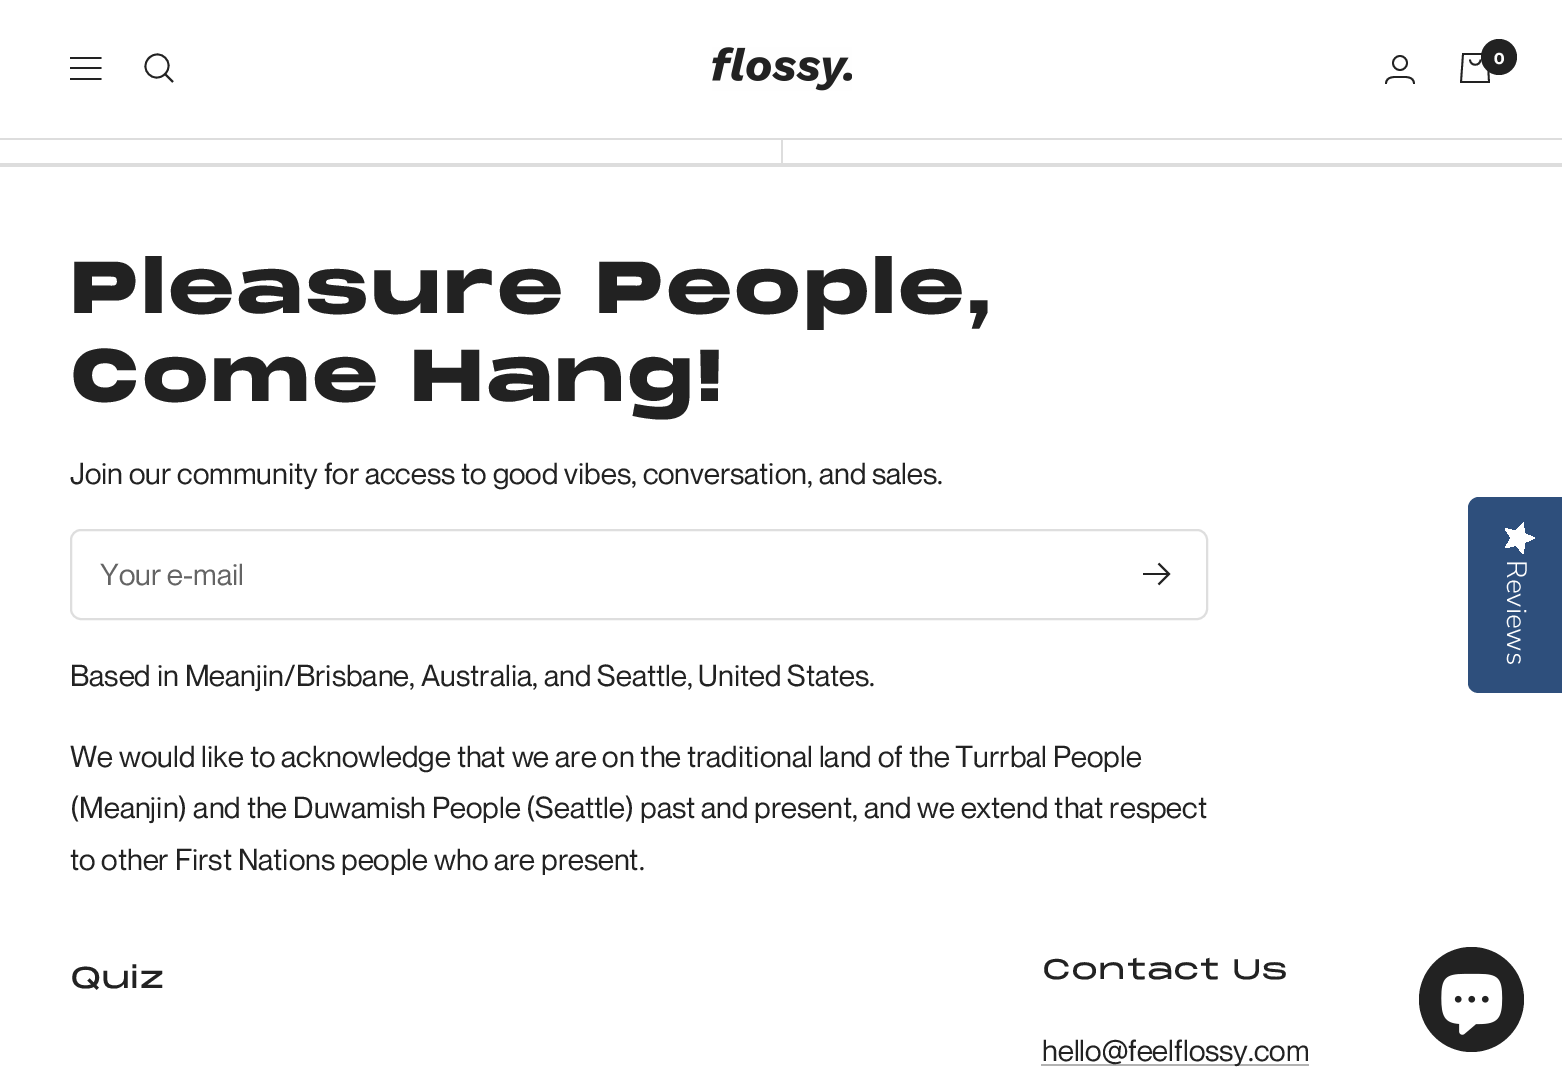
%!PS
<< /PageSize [1562 1087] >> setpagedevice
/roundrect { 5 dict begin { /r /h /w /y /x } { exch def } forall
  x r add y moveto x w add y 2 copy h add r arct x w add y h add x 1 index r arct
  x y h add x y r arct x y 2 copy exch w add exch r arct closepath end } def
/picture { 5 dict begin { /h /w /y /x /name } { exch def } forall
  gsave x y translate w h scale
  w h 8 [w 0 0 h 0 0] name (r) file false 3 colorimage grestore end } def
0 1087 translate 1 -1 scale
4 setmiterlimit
1 setgray
0 0 1562 1087 rectfill
0.867 setgray
newpath 0 138 moveto 0 140 lineto 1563 140 lineto 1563 2 lineto 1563 138 lineto closepath fill
0.133 setgray
1.8 setlinewidth
newpath 70 58 moveto 101.5 58 lineto 70 79 moveto 101.5 79 lineto closepath 70 68 moveto 101.5 68 lineto closepath stroke
newpath 165 74 moveto 176 63 160 47 149 58 curveto 138 69 154 85 165 74 curveto closepath 165 74 moveto 173 82 lineto stroke
(img1.rgb) 712 47 140 44 picture
newpath 1400 63 7 0 360 arc closepath stroke
newpath 1386 84 moveto 1386 76 1394.5 77 1400 77 curveto 1405.5 77 1414 76 1414 84 curveto stroke
newpath 1463 54 moveto 1487.5 54 lineto 1489 82 lineto 1461 82 lineto closepath 1470 59.5 moveto 1470 66.5 1480.5 66.5 1480.5 59.5 curveto stroke
newpath 1499 57 18 0 360 arc closepath fill
/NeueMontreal-Bold [16 0 0 -16 0 0] selectfont
0.996 setgray
1494 64 moveto (0) show
0.867 setgray
0 163 1562 2 rectfill
781 140 2 25 rectfill
0 165 1562 2 rectfill
/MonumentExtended-Black [71.4 0 0 -71.4 0 0] selectfont
0.133 setgray
70 313 moveto 1.75 0 (Pleasure People,) ashow
70 401 moveto 1.75 0 (Come Hang!) ashow
/NeueMontreal-Regular [29.75 0 0 -29.75 0 0] selectfont
70 484 moveto (Join our community for access to good vibes, conversation, and sales.) show
0.871 setgray
2 setlinewidth
71 530 1136 89 10 roundrect stroke
0.392 setgray
100 585 moveto (Your e-mail) show
0.133 setgray
1.8 setlinewidth
newpath 1143 574 moveto 1169 574 lineto 1158.5 563.5 moveto 1169 574 lineto 1158.5 584.5 lineto stroke
70 686 moveto (Based in Meanjin/Brisbane, Australia, and Seattle, United States.) show
70 767 moveto (We would like to acknowledge that we are on the traditional land of the Turrbal People) show
70 818 moveto (\(Meanjin\) and the Duwamish People \(Seattle\) past and present, and we extend that respect) show
70 870 moveto (to other First Nations people who are present.) show
/MonumentExtended-Regular [29.75 0 0 -29.75 0 0] selectfont
70 988 moveto (Quiz) show
/MonumentExtended-Regular [28 0 0 -28 0 0] selectfont
1042 979 moveto (Contact Us) show
0.698 setgray
1041 1064 268 2 rectfill
/NeueMontreal-Regular [29.75 0 0 -29.75 0 0] selectfont
0.133 setgray
1042 1061 moveto (hello@feelflossy.com) show
0.18 0.31 0.486 setrgbcolor
newpath 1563 497 moveto 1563 693 lineto 1479 693 lineto 1473 693 1468 689 1468 683 curveto 1468 508 lineto 1468 502 1473 497 1479 497 curveto closepath fill
gsave newpath 1511 538 moveto 1505 548 lineto 1516 545.5 lineto 1523.5 554 lineto 1524.5 542.5 lineto 1535 538 lineto 1524.5 533.5 lineto 1523.5 522.5 lineto 1516 531 lineto 1505 528.5 lineto closepath clip newpath
<< /ShadingType 2 /ColorSpace /DeviceRGB /Coords [1535 522 1535 554] /Extend [true true] /Function << /FunctionType 2 /Domain [0 1] /C0 [1 1 1] /C1 [1 1 1] /N 1 >> >> shfill grestore
/NunitoSans-Light [28 0 0 -28 0 0] selectfont
0.996 setgray
gsave 1507 560 translate 90 rotate 0 0 moveto (Reviews) show grestore
0.133 setgray
newpath 1471.5 999.5 52.5 0 360 arc closepath fill
(img2.rgb) 1441 973 62 62 picture
showpage
